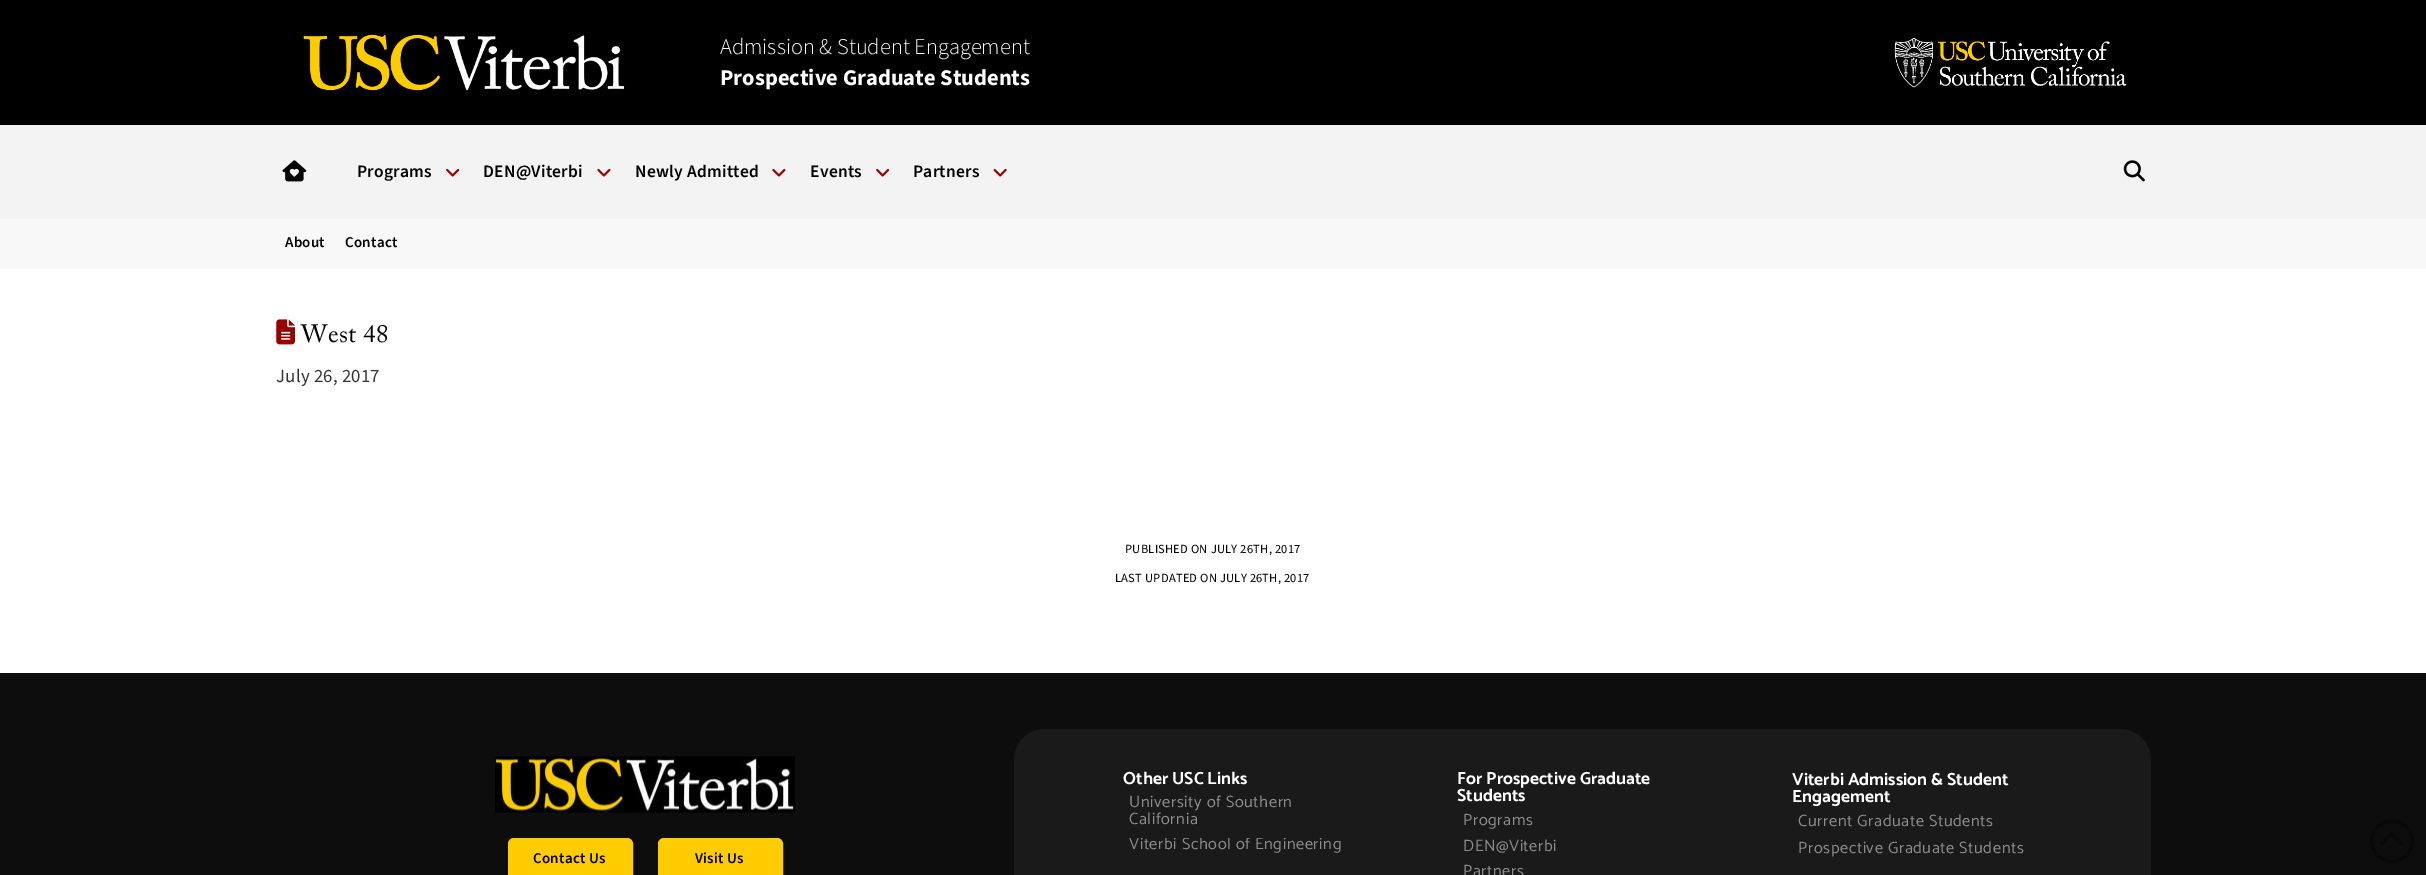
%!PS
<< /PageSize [2426 875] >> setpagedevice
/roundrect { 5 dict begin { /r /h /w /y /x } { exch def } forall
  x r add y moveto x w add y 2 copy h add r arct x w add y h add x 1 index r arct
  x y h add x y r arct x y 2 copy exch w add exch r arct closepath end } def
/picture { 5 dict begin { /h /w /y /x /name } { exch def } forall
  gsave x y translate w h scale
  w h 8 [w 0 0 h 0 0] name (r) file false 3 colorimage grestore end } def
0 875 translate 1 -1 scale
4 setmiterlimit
1 setgray
0 0 2426 875 rectfill
0 setgray
0 0 2426 125 rectfill
(img1.rgb) 303 34 322 57 picture
/SourceSans3-Light [22.5 0 0 -22.5 0 0] selectfont
1 setgray
720 54 moveto (Admission & Student Engagement) show
/SourceSans3-Bold [22.5 0 0 -22.5 0 0] selectfont
720 85 moveto (Prospective Graduate Students) show
(img2.rgb) 1894 37 233 51 picture
0.953 setgray
0 125 2426 94 rectfill
(img3.rgb) 282 160 25 22 picture
/SourceSans3-SemiBold [17.5 0 0 -17.5 0 0] selectfont
0 setgray
357 177 moveto 0.25 0 (Programs) ashow
(img4.rgb) 446 168 14 9 picture
483 177 moveto 0.25 0 (DEN@Viterbi) ashow
(img5.rgb) 597 168 14 9 picture
635 177 moveto 0.25 0 (Newly Admitted) ashow
(img5.rgb) 772 168 14 9 picture
810 177 moveto 0.25 0 (Events) ashow
(img4.rgb) 876 168 14 9 picture
913 177 moveto 0.25 0 (Partners) ashow
(img6.rgb) 993 168 14 9 picture
(img7.rgb) 2123 160 22 22 picture
0.973 setgray
0 219 2426 50 rectfill
/SourceSans3-SemiBold [15 0 0 -15 0 0] selectfont
0 setgray
285 247 moveto 0.25 0 (About) ashow
345 247 moveto 0.25 0 (Contact) ashow
(img8.rgb) 276 319 19 26 picture
/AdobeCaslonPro-Regular [25 0 0 -25 0 0] selectfont
301 342 moveto 0.5 0 (West 48) ashow
/SourceSans3-Regular [18.75 0 0 -18.75 0 0] selectfont
0.2 setgray
276 382 moveto 0.25 0 (July 26, 2017) ashow
/SourceSans3-Regular [12.5 0 0 -12.5 0 0] selectfont
0 setgray
1125 553 moveto 0.25 0 (PUBLISHED ON JULY 26TH, 2017) ashow
1115 582 moveto 0.25 0 (LAST UPDATED ON JULY 26TH, 2017) ashow
0.051 setgray
0 673 2426 202 rectfill
(img9.rgb) 495 756 300 57 picture
1 0.8 0 setrgbcolor
509.5 839.5 122 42 4.5 roundrect gsave fill grestore
3 setlinewidth
stroke
/SourceSans3-SemiBold [15 0 0 -15 0 0] selectfont
0 setgray
533 863 moveto 0.25 0 (Contact Us) ashow
1 0.8 0 setrgbcolor
659.5 839.5 122 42 4.5 roundrect gsave fill grestore
stroke
0 setgray
695 863 moveto 0.25 0 (Visit Us) ashow
0.102 setgray
1014 729 1137 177 31 roundrect fill
/Catamaran-Bold [17.5 0 0 -17.5 0 0] selectfont
1 setgray
1123 784 moveto (Other USC Links) show
/Catamaran-Regular [16.4 0 0 -16.4 0 0] selectfont
0.553 setgray
1129 807 moveto 0.6 0 (University of Southern) ashow
1129 824 moveto 0.6 0 (California) ashow
gsave
1123 838 250 25 rectclip
1129 849 moveto 0.6 0 (Viterbi School of Engineering) ashow
grestore
/Catamaran-Bold [17.5 0 0 -17.5 0 0] selectfont
1 setgray
1457 784 moveto (For Prospective Graduate) show
1457 801 moveto (Students) show
/Catamaran-Regular [16.4 0 0 -16.4 0 0] selectfont
0.553 setgray
1463 825 moveto 0.6 0 (Programs) ashow
1463 851 moveto 0.6 0 (DEN@Viterbi) ashow
1463 876 moveto 0.6 0 (Partners) ashow
/Catamaran-Bold [17.5 0 0 -17.5 0 0] selectfont
1 setgray
1792 785 moveto (Viterbi Admission & Student) show
1792 802 moveto (Engagement) show
/Catamaran-Regular [16.4 0 0 -16.4 0 0] selectfont
0.553 setgray
1798 826 moveto 0.6 0 (Current Graduate Students) ashow
1798 853 moveto 0.6 0 (Prospective Graduate Students) ashow
0.031 setgray
newpath 2392 841 20.5 0 360 arc closepath stroke
(img10.rgb) 2380 832 23 13 picture
showpage
